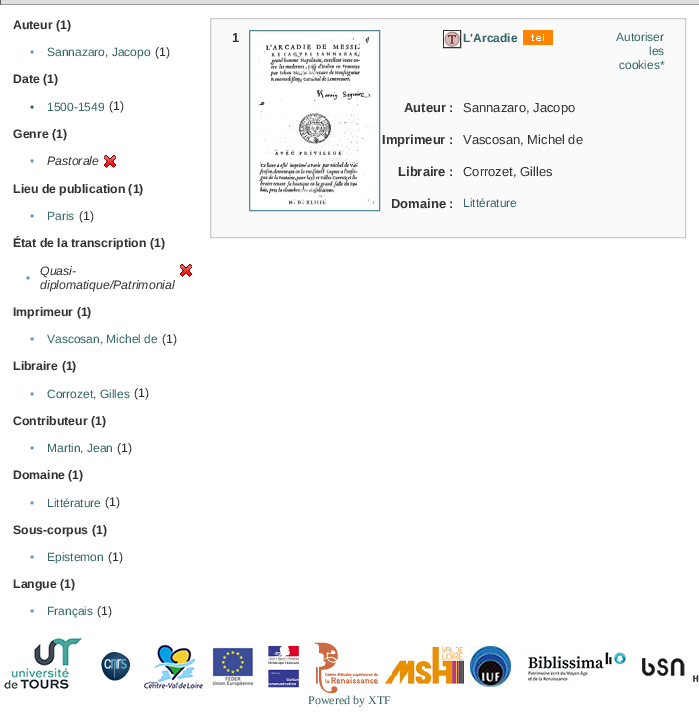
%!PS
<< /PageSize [699 718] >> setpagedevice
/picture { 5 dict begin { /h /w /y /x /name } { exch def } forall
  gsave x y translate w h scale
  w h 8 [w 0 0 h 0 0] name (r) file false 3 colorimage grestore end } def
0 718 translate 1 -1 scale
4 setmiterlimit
0.871 0.871 0.875 setrgbcolor
0 0 699 718 rectfill
0.6 setgray
0 4 699 1 rectfill
0.4 setgray
0 0 1 5 rectfill
1 setgray
0 5 699 713 rectfill
/LiberationSans-Bold [12.3 0 0 -12.3 0 0] selectfont
0.2 setgray
13 29 moveto (Auteur \(1\)) show
/LiberationSans-Regular [12.3 0 0 -12.3 0 0] selectfont
0.4 0.6 0.8 setrgbcolor
30 56 moveto (•) show
/LiberationSans-Regular [12 0 0 -12 0 0] selectfont
0.2 0.4 0.4 setrgbcolor
47 56 moveto (Sannazaro, Jacopo) show
/LiberationSans-Regular [12.3 0 0 -12.3 0 0] selectfont
0.2 setgray
155 56 moveto (\(1\)) show
/LiberationSans-Bold [12.3 0 0 -12.3 0 0] selectfont
13 83 moveto (Date \(1\)) show
/LiberationSans-Regular [12 0 0 -12 0 0] selectfont
0.2 0.4 0.4 setrgbcolor
30 111 moveto (•) show
47 111 moveto (1500-1549) show
/LiberationSans-Regular [12.3 0 0 -12.3 0 0] selectfont
0.2 setgray
109 110 moveto (\(1\)) show
/LiberationSans-Bold [12.3 0 0 -12.3 0 0] selectfont
13 138 moveto (Genre \(1\)) show
/LiberationSans-Regular [12.3 0 0 -12.3 0 0] selectfont
0.4 0.6 0.8 setrgbcolor
30 165 moveto (•) show
/LiberationSans-Italic [12.3 0 0 -12.3 0 0] selectfont
0.2 setgray
47 165 moveto (Pastorale) show
(img1.rgb) 104 155 12 13 picture
/LiberationSans-Bold [12.3 0 0 -12.3 0 0] selectfont
13 193 moveto (Lieu de publication \(1\)) show
/LiberationSans-Regular [12.3 0 0 -12.3 0 0] selectfont
0.4 0.6 0.8 setrgbcolor
30 220 moveto (•) show
/LiberationSans-Regular [12 0 0 -12 0 0] selectfont
0.2 0.4 0.4 setrgbcolor
47 220 moveto (Paris) show
/LiberationSans-Regular [12.3 0 0 -12.3 0 0] selectfont
0.2 setgray
79 220 moveto (\(1\)) show
/LiberationSans-Bold [12.3 0 0 -12.3 0 0] selectfont
13 247 moveto (État de la transcription \(1\)) show
/LiberationSans-Regular [12.3 0 0 -12.3 0 0] selectfont
0.4 0.6 0.8 setrgbcolor
26 282 moveto (•) show
/LiberationSans-Italic [12.3 0 0 -12.3 0 0] selectfont
0.2 setgray
40 275 moveto (Quasi-) show
40 289 moveto (diplomatique/Patrimonial) show
(img1.rgb) 180 264 12 13 picture
/LiberationSans-Bold [12.3 0 0 -12.3 0 0] selectfont
13 316 moveto (Imprimeur \(1\)) show
/LiberationSans-Regular [12.3 0 0 -12.3 0 0] selectfont
0.4 0.6 0.8 setrgbcolor
30 343 moveto (•) show
/LiberationSans-Regular [12 0 0 -12 0 0] selectfont
0.2 0.4 0.4 setrgbcolor
47 343 moveto (Vascosan, Michel de) show
/LiberationSans-Regular [12.3 0 0 -12.3 0 0] selectfont
0.2 setgray
162 343 moveto (\(1\)) show
/LiberationSans-Bold [12.3 0 0 -12.3 0 0] selectfont
13 370 moveto (Libraire \(1\)) show
/LiberationSans-Regular [12.3 0 0 -12.3 0 0] selectfont
0.4 0.6 0.8 setrgbcolor
30 398 moveto (•) show
/LiberationSans-Regular [12 0 0 -12 0 0] selectfont
0.2 0.4 0.4 setrgbcolor
47 398 moveto (Corrozet, Gilles) show
/LiberationSans-Regular [12.3 0 0 -12.3 0 0] selectfont
0.2 setgray
134 397 moveto (\(1\)) show
/LiberationSans-Bold [12.3 0 0 -12.3 0 0] selectfont
13 425 moveto (Contributeur \(1\)) show
/LiberationSans-Regular [12.3 0 0 -12.3 0 0] selectfont
0.4 0.6 0.8 setrgbcolor
30 452 moveto (•) show
/LiberationSans-Regular [12 0 0 -12 0 0] selectfont
0.2 0.4 0.4 setrgbcolor
47 452 moveto (Martin, Jean) show
/LiberationSans-Regular [12.3 0 0 -12.3 0 0] selectfont
0.2 setgray
117 452 moveto (\(1\)) show
/LiberationSans-Bold [12.3 0 0 -12.3 0 0] selectfont
13 479 moveto (Domaine \(1\)) show
/LiberationSans-Regular [12.3 0 0 -12.3 0 0] selectfont
0.4 0.6 0.8 setrgbcolor
30 507 moveto (•) show
/LiberationSans-Regular [12 0 0 -12 0 0] selectfont
0.2 0.4 0.4 setrgbcolor
47 507 moveto (Littérature) show
/LiberationSans-Regular [12.3 0 0 -12.3 0 0] selectfont
0.2 setgray
105 506 moveto (\(1\)) show
/LiberationSans-Bold [12.3 0 0 -12.3 0 0] selectfont
13 534 moveto (Sous-corpus \(1\)) show
/LiberationSans-Regular [12.3 0 0 -12.3 0 0] selectfont
0.4 0.6 0.8 setrgbcolor
30 561 moveto (•) show
/LiberationSans-Regular [12 0 0 -12 0 0] selectfont
0.2 0.4 0.4 setrgbcolor
47 561 moveto (Epistemon) show
/LiberationSans-Regular [12.3 0 0 -12.3 0 0] selectfont
0.2 setgray
108 561 moveto (\(1\)) show
/LiberationSans-Bold [12.3 0 0 -12.3 0 0] selectfont
13 588 moveto (Langue \(1\)) show
/LiberationSans-Regular [12.3 0 0 -12.3 0 0] selectfont
0.4 0.6 0.8 setrgbcolor
30 615 moveto (•) show
/LiberationSans-Regular [12 0 0 -12 0 0] selectfont
0.2 0.4 0.4 setrgbcolor
47 615 moveto (Français) show
/LiberationSans-Regular [12.3 0 0 -12.3 0 0] selectfont
0.2 setgray
97 615 moveto (\(1\)) show
0.98 0.98 0.984 setrgbcolor
newpath 210.5 18.5 moveto 685.5 18.5 lineto 685.5 237.5 lineto 210.5 237.5 lineto closepath gsave fill grestore
0.8 setgray
stroke
/LiberationSans-Bold [13 0 0 -13 0 0] selectfont
0.2 setgray
232 42 moveto (1) show
0.349 0.537 0.584 setrgbcolor
249.5 30.5 130 180 rectstroke
(img2.rgb) 252 33 125 175 picture
0.2 setgray
443.5 30.5 17 17 rectstroke
(img3.rgb) 444 31 16 16 picture
/LiberationSans-Bold [12 0 0 -12 0 0] selectfont
0.2 0.4 0.4 setrgbcolor
463 42 moveto (L'Arcadie) show
(img4.rgb) 523 30 30 15 picture
/LiberationSans-Regular [12 0 0 -12 0 0] selectfont
616 41 moveto (Autoriser) show
649 55 moveto (les) show
619 69 moveto (cookies*) show
/LiberationSans-Bold [13 0 0 -13 0 0] selectfont
0.2 setgray
404 112 moveto (Auteur :) show
/LiberationSans-Regular [13 0 0 -13 0 0] selectfont
463 112 moveto (Sannazaro, Jacopo) show
/LiberationSans-Bold [13 0 0 -13 0 0] selectfont
382 144 moveto (Imprimeur :) show
/LiberationSans-Regular [13 0 0 -13 0 0] selectfont
463 144 moveto (Vascosan, Michel de) show
/LiberationSans-Bold [13 0 0 -13 0 0] selectfont
398 176 moveto (Libraire :) show
/LiberationSans-Regular [13 0 0 -13 0 0] selectfont
463 176 moveto (Corrozet, Gilles) show
/LiberationSans-Bold [13 0 0 -13 0 0] selectfont
391 208 moveto (Domaine :) show
/LiberationSans-Regular [12 0 0 -12 0 0] selectfont
0.2 0.4 0.4 setrgbcolor
463 207 moveto (Littérature) show
(img5.rgb) 4 637 695 56 picture
/LiberationSerif-Regular [12 0 0 -12 0 0] selectfont
308 704 moveto (Powered by XTF) show
showpage
